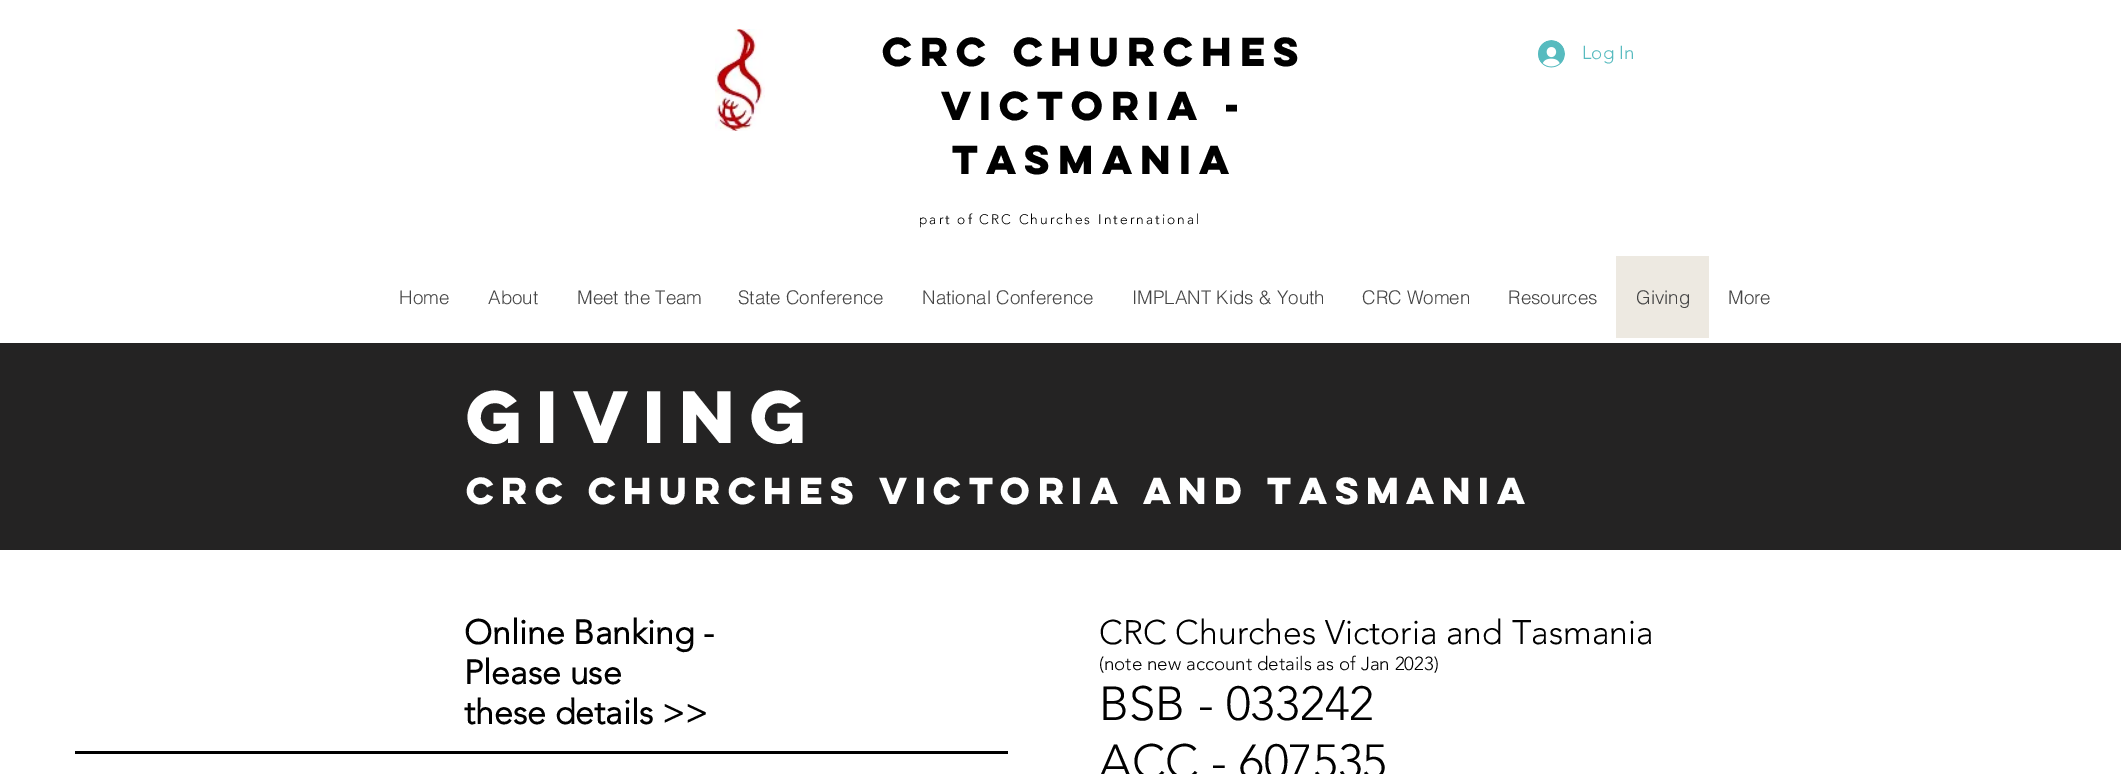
%!PS
<< /PageSize [2121 774] >> setpagedevice
/picture { 5 dict begin { /h /w /y /x /name } { exch def } forall
  gsave x y translate w h scale
  w h 8 [w 0 0 h 0 0] name (r) file false 3 colorimage grestore end } def
0 774 translate 1 -1 scale
4 setmiterlimit
1 setgray
0 0 2121 774 rectfill
(img1.rgb) 715 29 50 102 picture
/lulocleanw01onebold-Bold [36.25 0 0 -36.25 0 0] selectfont
0 setgray
882 66 moveto (CRC CHURCHES) show
941 120 moveto (VICTORIA -) show
952 174 moveto (TASMANIA) show
(img2.rgb) 1538 40 27 28 picture
/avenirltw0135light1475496-Light [18.75 0 0 -18.75 0 0] selectfont
0.341 0.733 0.749 setrgbcolor
1582 59 moveto (Log In) show
/avenirltw0135light1475496-Light [13.75 0 0 -13.75 0 0] selectfont
0 setgray
919 224 moveto 2.05 0 (part of CRC Churches International) ashow
/helvetica-Light [18.75 0 0 -18.75 0 0] selectfont
0.267 setgray
399 304 moveto (Home) show
488 304 moveto (About) show
577 304 moveto (Meet the Team) show
738 304 moveto (State Conference) show
922 304 moveto (National Conference) show
1132 304 moveto (IMPLANT Kids & Youth) show
1362 304 moveto (CRC Women) show
1508 304 moveto (Resources) show
0.929 0.914 0.882 setrgbcolor
1616 256 93 82 rectfill
0.267 setgray
1636 304 moveto (Giving) show
1728 304 moveto (More) show
0.141 0.137 0.137 setrgbcolor
0 343 2121 207 rectfill
/lulocleanw01onebold-Bold [66.25 0 0 -66.25 0 0] selectfont
1 setgray
466 443 moveto (GIVING) show
/lulocleanw01onebold-Bold [33.75 0 0 -33.75 0 0] selectfont
466 504 moveto (CRC CHurches Victoria and tasmania) show
/avenirltw0135light1475496-Bold [33.75 0 0 -33.75 0 0] selectfont
0 setgray
464 644 moveto (Online Banking -) show
464 684 moveto (Please use) show
464 724 moveto (these details >>) show
/avenirltw0135light1475496-Light [33.75 0 0 -33.75 0 0] selectfont
1099 644 moveto (CRC Churches Victoria and Tasmania) show
/avenirltw0135light1475496-Light [18.75 0 0 -18.75 0 0] selectfont
1099 670 moveto (\(note new account details as of Jan 2023\)) show
/avenirltw0135light1475496-Light [47.5 0 0 -47.5 0 0] selectfont
1099 720 moveto (BSB - 033242) show
1099 778 moveto (ACC - 607535) show
75 751 933 3 rectfill
showpage
